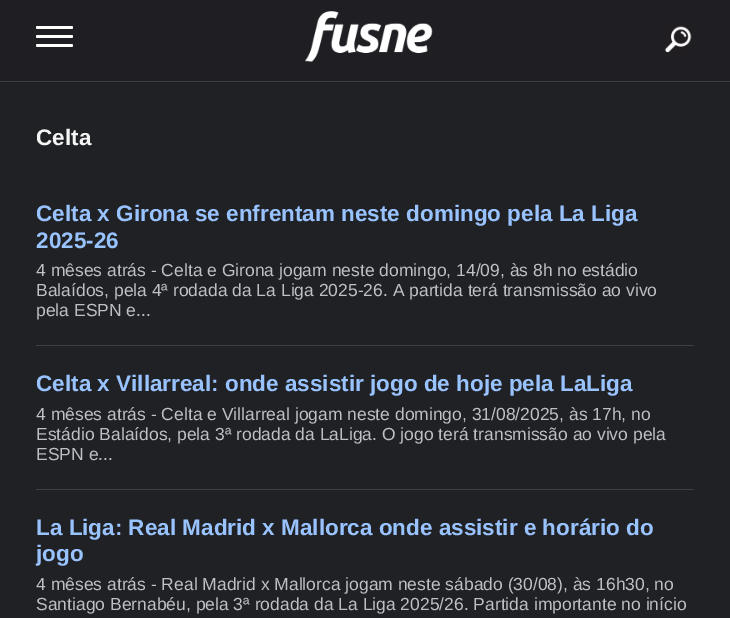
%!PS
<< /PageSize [730 618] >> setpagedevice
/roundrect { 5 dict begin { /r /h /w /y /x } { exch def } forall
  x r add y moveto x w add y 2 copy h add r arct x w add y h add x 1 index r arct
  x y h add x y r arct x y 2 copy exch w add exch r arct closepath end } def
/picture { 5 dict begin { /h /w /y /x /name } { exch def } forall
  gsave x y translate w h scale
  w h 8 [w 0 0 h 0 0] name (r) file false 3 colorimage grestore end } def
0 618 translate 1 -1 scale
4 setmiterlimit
0.125 0.129 0.141 setrgbcolor
0 0 730 618 rectfill
0.118 0.118 0.137 setrgbcolor
0 0 730 83 rectfill
0.235 0.251 0.263 setrgbcolor
0 81 730 1 rectfill
1 setgray
36 26 37 3 1.5 roundrect fill
36 35 37 3 1.5 roundrect fill
36 44 37 3 1.5 roundrect fill
(img1.rgb) 305 11 128 51 picture
(img2.rgb) 665 26 27 27 picture
/LiberationSans-Bold [22.5 0 0 -22.5 0 0] selectfont
0.961 setgray
36 145 moveto (Celta) show
0.235 0.251 0.263 setrgbcolor
36 345 658 1 rectfill
0.6 0.765 1 setrgbcolor
36 221 moveto (Celta x Girona se enfrentam neste domingo pela La Liga) show
36 248 moveto (2025-26) show
/LiberationSans-Regular [17.5 0 0 -17.5 0 0] selectfont
0.741 0.757 0.769 setrgbcolor
36 276 moveto (4 mêses atrás - Celta e Girona jogam neste domingo, 14/09, às 8h no estádio) show
36 296 moveto (Balaídos, pela 4ª rodada da La Liga 2025-26. A partida terá transmissão ao vivo) show
36 316 moveto (pela ESPN e...) show
0.235 0.251 0.263 setrgbcolor
36 489 658 1 rectfill
/LiberationSans-Bold [22.5 0 0 -22.5 0 0] selectfont
0.6 0.765 1 setrgbcolor
36 391 moveto (Celta x Villarreal: onde assistir jogo de hoje pela LaLiga) show
/LiberationSans-Regular [17.5 0 0 -17.5 0 0] selectfont
0.741 0.757 0.769 setrgbcolor
36 420 moveto (4 mêses atrás - Celta e Villarreal jogam neste domingo, 31/08/2025, às 17h, no) show
36 440 moveto (Estádio Balaídos, pela 3ª rodada da LaLiga. O jogo terá transmissão ao vivo pela) show
36 460 moveto (ESPN e...) show
/LiberationSans-Bold [22.5 0 0 -22.5 0 0] selectfont
0.6 0.765 1 setrgbcolor
36 535 moveto (La Liga: Real Madrid x Mallorca onde assistir e horário do) show
36 561 moveto (jogo) show
/LiberationSans-Regular [17.5 0 0 -17.5 0 0] selectfont
0.741 0.757 0.769 setrgbcolor
36 590 moveto (4 mêses atrás - Real Madrid x Mallorca jogam neste sábado \(30/08\), às 16h30, no) show
36 610 moveto (Santiago Bernabéu, pela 3ª rodada da La Liga 2025/26. Partida importante no início) show
showpage
